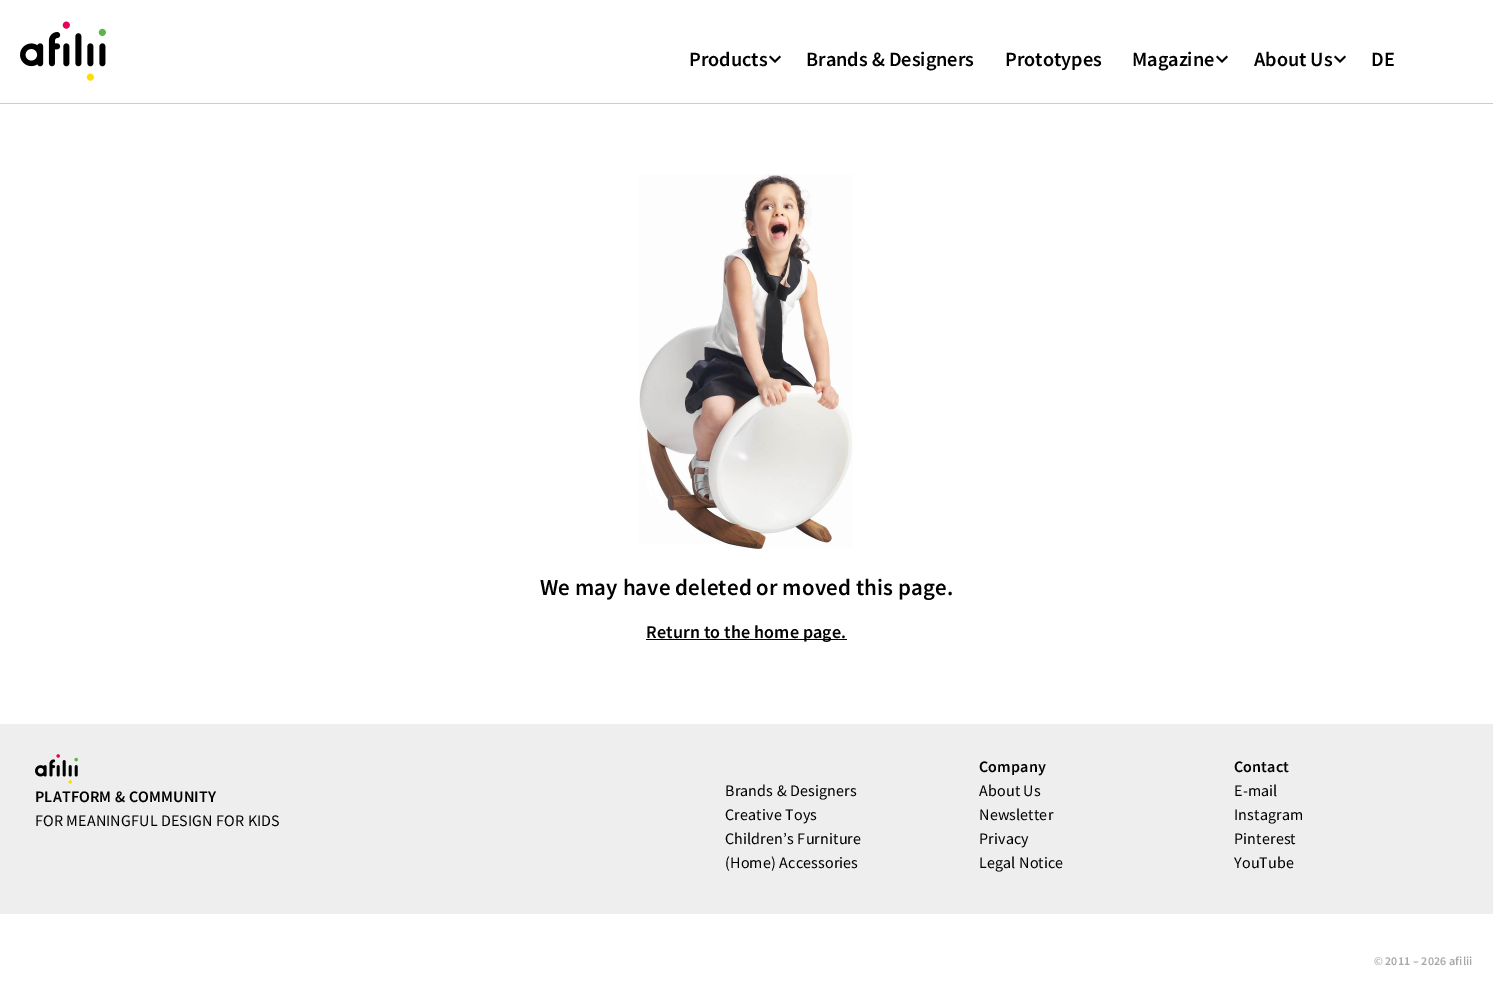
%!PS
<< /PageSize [1493 985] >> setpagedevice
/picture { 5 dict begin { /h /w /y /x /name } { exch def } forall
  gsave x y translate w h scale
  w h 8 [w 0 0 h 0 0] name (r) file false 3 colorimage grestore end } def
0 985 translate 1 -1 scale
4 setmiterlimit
1 setgray
0 0 1493 985 rectfill
0.8 setgray
0 103 1493 1 rectfill
(img1.rgb) 20 21 86 60 picture
(img2.rgb) 769 55 12 8 picture
/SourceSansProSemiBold-SemiBold [20.25 0 0 -20.25 0 0] selectfont
0 setgray
689 66 moveto (Products) show
806 66 moveto (Brands & Designers) show
1005 66 moveto (Prototypes) show
(img2.rgb) 1216 55 12 8 picture
1132 66 moveto (Magazine) show
(img2.rgb) 1334 55 12 8 picture
1254 66 moveto (About Us) show
1371 66 moveto (DE) show
(img3.rgb) 639 174 214 375 picture
/SourceSansProSemiBold-SemiBold [22.9 0 0 -22.9 0 0] selectfont
540 595 moveto 0.15 0 (We may have deleted or moved this page.) ashow
646 639 201 1 rectfill
/SourceSansProSemiBold-SemiBold [18 0 0 -18 0 0] selectfont
646 638 moveto 0.15 0 (Return to the home page.) ashow
0.933 setgray
0 724 1493 190 rectfill
(img4.rgb) 35 754 43 30 picture
/SourceSansProSemiBold-SemiBold [16 0 0 -16 0 0] selectfont
0 setgray
35 802 moveto 0.15 0 (PLATFORM & COMMUNITY) ashow
/SourceSansPro-Regular [16 0 0 -16 0 0] selectfont
35 826 moveto 0.15 0 (FOR MEANINGFUL DESIGN FOR KIDS) ashow
725 796 moveto 0.15 0 (Brands & Designers) ashow
725 820 moveto 0.15 0 (Creative Toys) ashow
725 844 moveto 0.15 0 (Children’s Furniture) ashow
725 868 moveto 0.15 0 (\(Home\) Accessories) ashow
/SourceSansProSemiBold-SemiBold [16 0 0 -16 0 0] selectfont
979 772 moveto 0.15 0 (Company) ashow
/SourceSansPro-Regular [16 0 0 -16 0 0] selectfont
979 796 moveto 0.15 0 (About Us) ashow
979 820 moveto 0.15 0 (Newsletter) ashow
979 844 moveto 0.15 0 (Privacy) ashow
979 868 moveto 0.15 0 (Legal Notice) ashow
/SourceSansProSemiBold-SemiBold [16 0 0 -16 0 0] selectfont
1234 772 moveto 0.15 0 (Contact) ashow
/SourceSansPro-Regular [16 0 0 -16 0 0] selectfont
1234 796 moveto 0.15 0 (E-mail) ashow
1234 820 moveto 0.15 0 (Instagram) ashow
1234 844 moveto 0.15 0 (Pinterest) ashow
1234 868 moveto 0.15 0 (YouTube) ashow
/SourceSansPro-Regular [12 0 0 -12 0 0] selectfont
0.659 setgray
1374 965 moveto 0.15 0 (©) ashow
/SourceSansProSemiBold-SemiBold [12 0 0 -12 0 0] selectfont
1385 965 moveto 0.15 0 (2011 – 2026 afilii) ashow
showpage
